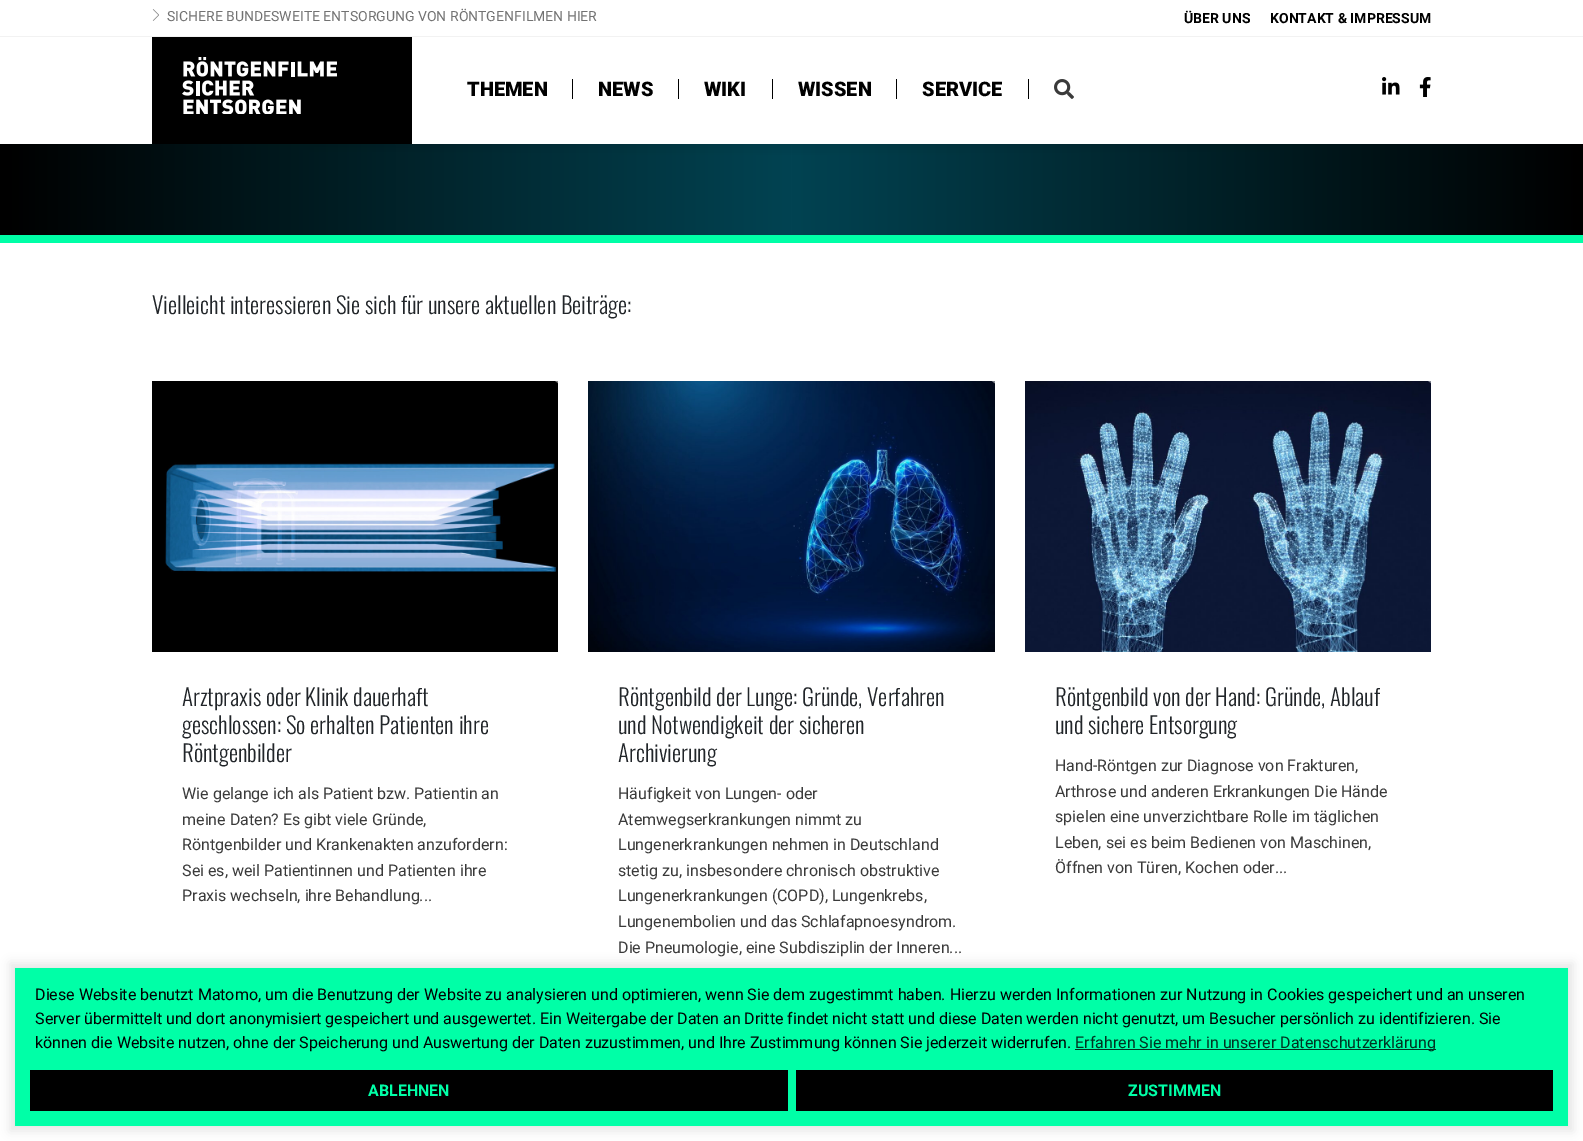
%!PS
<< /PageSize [1583 1141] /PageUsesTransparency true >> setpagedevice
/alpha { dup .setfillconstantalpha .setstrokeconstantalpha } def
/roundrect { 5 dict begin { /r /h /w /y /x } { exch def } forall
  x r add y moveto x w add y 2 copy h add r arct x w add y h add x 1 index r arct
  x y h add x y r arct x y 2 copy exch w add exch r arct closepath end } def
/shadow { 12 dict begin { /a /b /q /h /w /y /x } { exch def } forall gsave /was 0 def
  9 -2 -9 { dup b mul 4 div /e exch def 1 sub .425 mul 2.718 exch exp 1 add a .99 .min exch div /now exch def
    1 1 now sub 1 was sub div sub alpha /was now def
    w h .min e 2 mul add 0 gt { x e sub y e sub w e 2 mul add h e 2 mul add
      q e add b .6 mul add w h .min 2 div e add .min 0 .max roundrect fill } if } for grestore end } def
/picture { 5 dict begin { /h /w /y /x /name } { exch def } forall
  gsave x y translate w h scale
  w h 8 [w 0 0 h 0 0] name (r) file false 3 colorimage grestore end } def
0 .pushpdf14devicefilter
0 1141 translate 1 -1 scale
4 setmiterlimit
1 setgray
0 0 1583 1141 rectfill
gsave newpath 0 144 moveto 1583 144 lineto 1583 235 lineto 0 235 lineto closepath clip newpath
<< /ShadingType 2 /ColorSpace /DeviceRGB /Coords [0 175 1583 175] /Extend [true true] /Function << /FunctionType 3 /Domain [0 1] /Functions [<< /FunctionType 2 /Domain [0 1] /C0 [0 0 0] /C1 [0.008 0.263 0.322] /N 1 >> << /FunctionType 2 /Domain [0 1] /C0 [0.008 0.263 0.322] /C1 [0 0 0] /N 1 >>] /Bounds [0.5] /Encode [0 1 0 1] >> >> shfill grestore
0 setgray
0 5 1583 144 0 5 0.1 shadow
1 setgray
0 0 1583 144 rectfill
0.949 setgray
0 36 1583 1 rectfill
(img1.rgb) 152 9 7 12 picture
/Roboto-Regular [14 0 0 -14 0 0] selectfont
0.447 setgray
167 21 moveto (SICHERE BUNDESWEITE ENTSORGUNG VON RÖNTGENFILMEN HIER) show
/Roboto-Bold [14 0 0 -14 0 0] selectfont
0 setgray
1184 23 moveto (ÜBER UNS) show
1270 23 moveto (KONTAKT & IMPRESSUM) show
152 37 260 107 rectfill
(img2.rgb) 182 57 155 57 picture
572 79 1 20 rectfill
/Roboto-Black [20 0 0 -20 0 0] selectfont
467 96 moveto (THEMEN) show
678 79 1 20 rectfill
598 96 moveto (NEWS) show
772 79 1 20 rectfill
704 96 moveto (WIKI) show
896 79 1 20 rectfill
798 96 moveto (WISSEN) show
1028 79 1 20 rectfill
922 96 moveto (SERVICE) show
(img3.rgb) 1054 79 20 20 picture
(img4.rgb) 1382 77 18 18 picture
(img5.rgb) 1419 77 12 20 picture
0 1 0.655 setrgbcolor
0 235 1583 8 rectfill
/Oswald-Light [23 0 0 -23 0 0] selectfont
0.129 0.145 0.161 setrgbcolor
152 314 moveto (Vielleicht interessieren Sie sich für unsere aktuellen Beiträge:) show
(img6.rgb) 152 381 406 271 picture
gsave
152 381 406 271 rectclip
0.502 setgray
newpath 628 -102 moveto 1174 300 lineto 810 569 lineto 264 166 lineto closepath fill
grestore
182 706 moveto (Arztpraxis oder Klinik dauerhaft) show
182 734 moveto (geschlossen: So erhalten Patienten ihre) show
182 762 moveto (Röntgenbilder) show
/Roboto-Regular [16 0 0 -16 0 0] selectfont
0.227 setgray
182 799 moveto (Wie gelange ich als Patient bzw. Patientin an) show
182 825 moveto (meine Daten? Es gibt viele Gründe,) show
182 850 moveto (Röntgenbilder und Krankenakten anzufordern:) show
182 876 moveto (Sei es, weil Patientinnen und Patienten ihre) show
182 901 moveto (Praxis wechseln, ihre Behandlung...) show
(img7.rgb) 588 381 407 271 picture
gsave
588 381 407 271 rectclip
0.502 0.518 0.549 setrgbcolor
newpath 1065 -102 moveto 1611 300 lineto 1247 569 lineto 700 166 lineto closepath fill
grestore
/Oswald-Light [23 0 0 -23 0 0] selectfont
0.129 0.145 0.161 setrgbcolor
618 706 moveto (Röntgenbild der Lunge: Gründe, Verfahren) show
618 734 moveto (und Notwendigkeit der sicheren) show
618 762 moveto (Archivierung) show
/Roboto-Regular [16 0 0 -16 0 0] selectfont
0.227 setgray
618 799 moveto (Häufigkeit von Lungen- oder) show
618 825 moveto (Atemwegserkrankungen nimmt zu) show
618 850 moveto (Lungenerkrankungen nehmen in Deutschland) show
618 876 moveto (stetig zu, insbesondere chronisch obstruktive) show
618 901 moveto (Lungenerkrankungen \(COPD\), Lungenkrebs,) show
618 927 moveto (Lungenembolien und das Schlafapnoesyndrom.) show
618 953 moveto (Die Pneumologie, eine Subdisziplin der Inneren...) show
(img8.rgb) 1025 381 406 271 picture
gsave
1025 381 406 271 rectclip
0.518 0.529 0.576 setrgbcolor
newpath 1501 -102 moveto 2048 300 lineto 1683 569 lineto 1137 166 lineto closepath fill
grestore
/Oswald-Light [23 0 0 -23 0 0] selectfont
0.129 0.145 0.161 setrgbcolor
1055 706 moveto (Röntgenbild von der Hand: Gründe, Ablauf) show
1055 734 moveto (und sichere Entsorgung) show
/Roboto-Regular [16 0 0 -16 0 0] selectfont
0.227 setgray
1055 771 moveto (Hand-Röntgen zur Diagnose von Frakturen,) show
1055 797 moveto (Arthrose und anderen Erkrankungen Die Hände) show
1055 822 moveto (spielen eine unverzichtbare Rolle im täglichen) show
1055 848 moveto (Leben, sei es beim Bedienen von Maschinen,) show
1055 873 moveto (Öffnen von Türen, Kochen oder...) show
0 setgray
10 963 1563 168 0 5 0.1 shadow
0 1 0.655 setrgbcolor
15 968 1553 158 rectfill
0 setgray
35 1000 moveto (Diese Website benutzt Matomo, um die Benutzung der Website zu analysieren und optimieren, wenn Sie dem zugestimmt haben. Hierzu werden Informationen zur Nutzung in Cookies gespeichert und an unseren) show
35 1024 moveto (Server übermittelt und dort anonymisiert gespeichert und ausgewertet. Ein Weitergabe der Daten an Dritte findet nicht statt und diese Daten werden nicht genutzt, um Besucher persönlich zu identifizieren. Sie) show
35 1048 moveto (können die Website nutzen, ohne der Speicherung und Auswertung der Daten zuzustimmen, und Ihre Zustimmung können Sie jederzeit widerrufen.) show
0 0.2 0.129 setrgbcolor
1075 1049 361 1 rectfill
1075 1048 moveto (Erfahren Sie mehr in unserer Datenschutzerklärung) show
0 setgray
30 1070 758 41 rectfill
/Roboto-Bold [16 0 0 -16 0 0] selectfont
0 1 0.655 setrgbcolor
368 1096 moveto (ABLEHNEN) show
0 setgray
796 1070 757 41 rectfill
0 1 0.655 setrgbcolor
1128 1096 moveto (ZUSTIMMEN) show
.poppdf14devicefilter showpage
